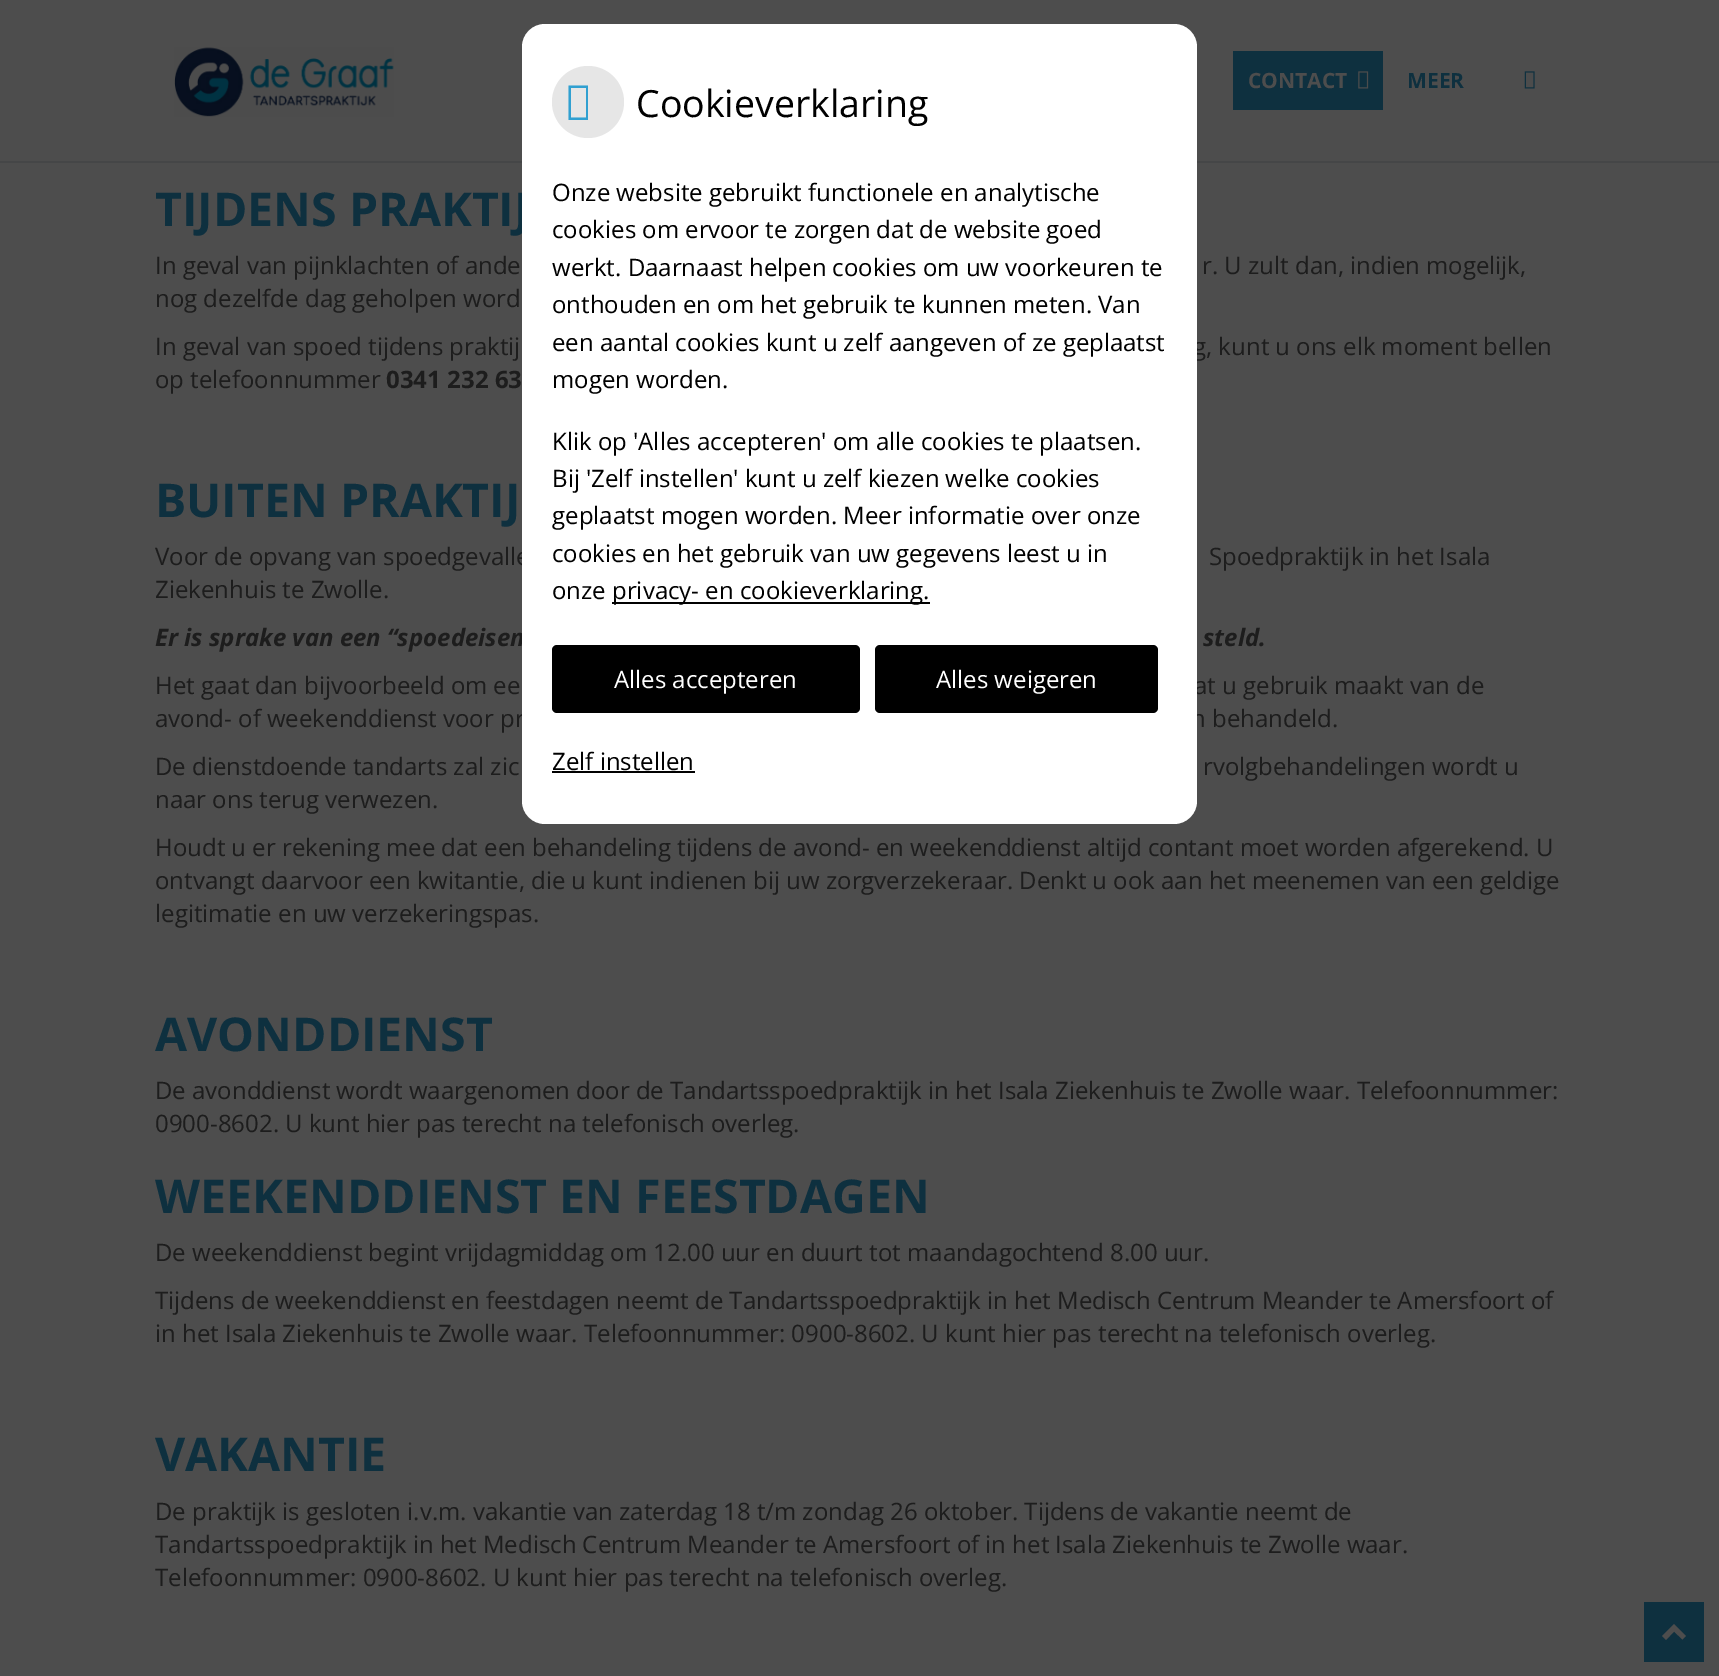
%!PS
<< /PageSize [1719 1676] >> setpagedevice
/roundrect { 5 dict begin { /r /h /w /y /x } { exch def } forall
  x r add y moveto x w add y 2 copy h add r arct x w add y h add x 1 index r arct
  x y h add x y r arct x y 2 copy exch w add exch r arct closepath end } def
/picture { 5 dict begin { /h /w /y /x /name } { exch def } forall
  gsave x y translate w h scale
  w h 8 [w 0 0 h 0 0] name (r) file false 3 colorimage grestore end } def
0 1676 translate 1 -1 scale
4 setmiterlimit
0.302 setgray
0 0 1719 1676 rectfill
0.271 0.275 0.278 setrgbcolor
0 161 1719 2 rectfill
(img1.rgb) 174 47 220 70 picture
0.055 0.188 0.247 setrgbcolor
1233 51 150 59 rectfill
/OpenSans-Bold [21 0 0 -21 0 0] selectfont
0.302 setgray
1248 88 moveto (CONTACT) show
(img2.rgb) 1358 71 11 18 picture
0.055 0.188 0.247 setrgbcolor
1407 88 moveto (MEER) show
(img3.rgb) 1524 71 11 18 picture
/OpenSans-Bold [46.5 0 0 -46.5 0 0] selectfont
155 226 moveto (TIJDENS PRAKTIJ) show
/OpenSans-Regular [24 0 0 -24 0 0] selectfont
0.114 setgray
155 274 moveto (In geval van pijnklachten of ande) show
1202 274 moveto (r. U zult dan, indien mogelijk,) show
155 307 moveto (nog dezelfde dag geholpen word) show
155 355 moveto (In geval van spoed tijdens praktij) show
1193 355 moveto (g, kunt u ons elk moment bellen) show
155 388 moveto (op telefoonnummer) show
/OpenSans-Bold [24 0 0 -24 0 0] selectfont
386 388 moveto (0341 232 63) show
/OpenSans-Bold [46.5 0 0 -46.5 0 0] selectfont
0.055 0.188 0.247 setrgbcolor
155 517 moveto (BUITEN PRAKTIJ) show
/OpenSans-Regular [24 0 0 -24 0 0] selectfont
0.114 setgray
155 565 moveto (Voor de opvang van spoedgevalle) show
1209 565 moveto (Spoedpraktijk in het Isala) show
155 598 moveto (Ziekenhuis te Zwolle.) show
/OpenSans-BoldItalic [24 0 0 -24 0 0] selectfont
155 646 moveto (Er is sprake van een “spoedeisen) show
1203 646 moveto (steld.) show
/OpenSans-Regular [24 0 0 -24 0 0] selectfont
155 694 moveto (Het gaat dan bijvoorbeeld om ee) show
1194 694 moveto (at u gebruik maakt van de) show
155 727 moveto (avond- of weekenddienst voor pr) show
1191 727 moveto (n behandeld.) show
155 775 moveto (De dienstdoende tandarts zal zic) show
1203 775 moveto (rvolgbehandelingen wordt u) show
155 808 moveto (naar ons terug verwezen.) show
155 856 moveto (Houdt u er rekening mee dat een behandeling tijdens de avond- en weekenddienst altijd contant moet worden afgerekend. U) show
155 889 moveto (ontvangt daarvoor een kwitantie, die u kunt indienen bij uw zorgverzekeraar. Denkt u ook aan het meenemen van een geldige) show
155 922 moveto (legitimatie en uw verzekeringspas.) show
/OpenSans-Bold [46.5 0 0 -46.5 0 0] selectfont
0.055 0.188 0.247 setrgbcolor
155 1051 moveto (AVONDDIENST) show
/OpenSans-Regular [24 0 0 -24 0 0] selectfont
0.114 setgray
155 1099 moveto (De avonddienst wordt waargenomen door de Tandartsspoedpraktijk in het Isala Ziekenhuis te Zwolle waar. Telefoonnummer:) show
155 1132 moveto (0900-8602. U kunt hier pas terecht na telefonisch overleg.) show
/OpenSans-Bold [46.5 0 0 -46.5 0 0] selectfont
0.055 0.188 0.247 setrgbcolor
155 1213 moveto (WEEKENDDIENST EN FEESTDAGEN) show
/OpenSans-Regular [24 0 0 -24 0 0] selectfont
0.114 setgray
155 1261 moveto (De weekenddienst begint vrijdagmiddag om 12.00 uur en duurt tot maandagochtend 8.00 uur.) show
155 1309 moveto (Tijdens de weekenddienst en feestdagen neemt de Tandartsspoedpraktijk in het Medisch Centrum Meander te Amersfoort of) show
155 1342 moveto (in het Isala Ziekenhuis te Zwolle waar. Telefoonnummer: 0900-8602. U kunt hier pas terecht na telefonisch overleg.) show
/OpenSans-Bold [46.5 0 0 -46.5 0 0] selectfont
0.055 0.188 0.247 setrgbcolor
155 1471 moveto (VAKANTIE) show
/OpenSans-Regular [24 0 0 -24 0 0] selectfont
0.114 setgray
155 1520 moveto (De praktijk is gesloten i.v.m. vakantie van zaterdag 18 t/m zondag 26 oktober. Tijdens de vakantie neemt de) show
155 1553 moveto (Tandartsspoedpraktijk in het Medisch Centrum Meander te Amersfoort of in het Isala Ziekenhuis te Zwolle waar.) show
155 1586 moveto (Telefoonnummer: 0900-8602. U kunt hier pas terecht na telefonisch overleg.) show
0.055 0.188 0.247 setrgbcolor
1644 1602 60 60 rectfill
0.302 setgray
newpath 1674 1624 moveto 1686 1636 lineto 1682.5 1639.5 lineto 1674 1631.5 lineto 1666 1640 lineto 1662 1636 lineto closepath fill
1 setgray
522 24 675 800 23 roundrect fill
0.902 setgray
newpath 588 102 36 0 360 arc closepath fill
0.188 0.627 0.82 setrgbcolor
newpath 568.5 120 moveto 568.5 85.5 lineto 588 85.5 lineto 588 120 lineto closepath 571 117.5 moveto 586 117.5 lineto 586 88 lineto 571 88 lineto closepath fill
/OpenSans-Regular [37.5 0 0 -37.5 0 0] selectfont
0 setgray
636 117 moveto (Cookieverklaring) show
/OpenSans-Regular [24 0 0 -24 0 0] selectfont
552 201 moveto (Onze website gebruikt functionele en analytische) show
552 238 moveto (cookies om ervoor te zorgen dat de website goed) show
552 276 moveto (werkt. Daarnaast helpen cookies om uw voorkeuren te) show
552 313 moveto (onthouden en om het gebruik te kunnen meten. Van) show
552 351 moveto (een aantal cookies kunt u zelf aangeven of ze geplaatst) show
552 388 moveto (mogen worden.) show
552 450 moveto (Klik op 'Alles accepteren' om alle cookies te plaatsen.) show
552 487 moveto (Bij 'Zelf instellen' kunt u zelf kiezen welke cookies) show
552 524 moveto (geplaatst mogen worden. Meer informatie over onze) show
552 562 moveto (cookies en het gebruik van uw gegevens leest u in) show
552 599 moveto (onze) show
612 602 318 2 rectfill
612 599 moveto (privacy- en cookieverklaring.) show
552 645 308 68 5 roundrect fill
1 setgray
614 688 moveto (Alles accepteren) show
0 setgray
875 645 283 68 5 roundrect fill
1 setgray
936 688 moveto (Alles weigeren) show
0 setgray
552 770 moveto (Zelf instellen) show
552 771 143 2 rectfill
showpage
